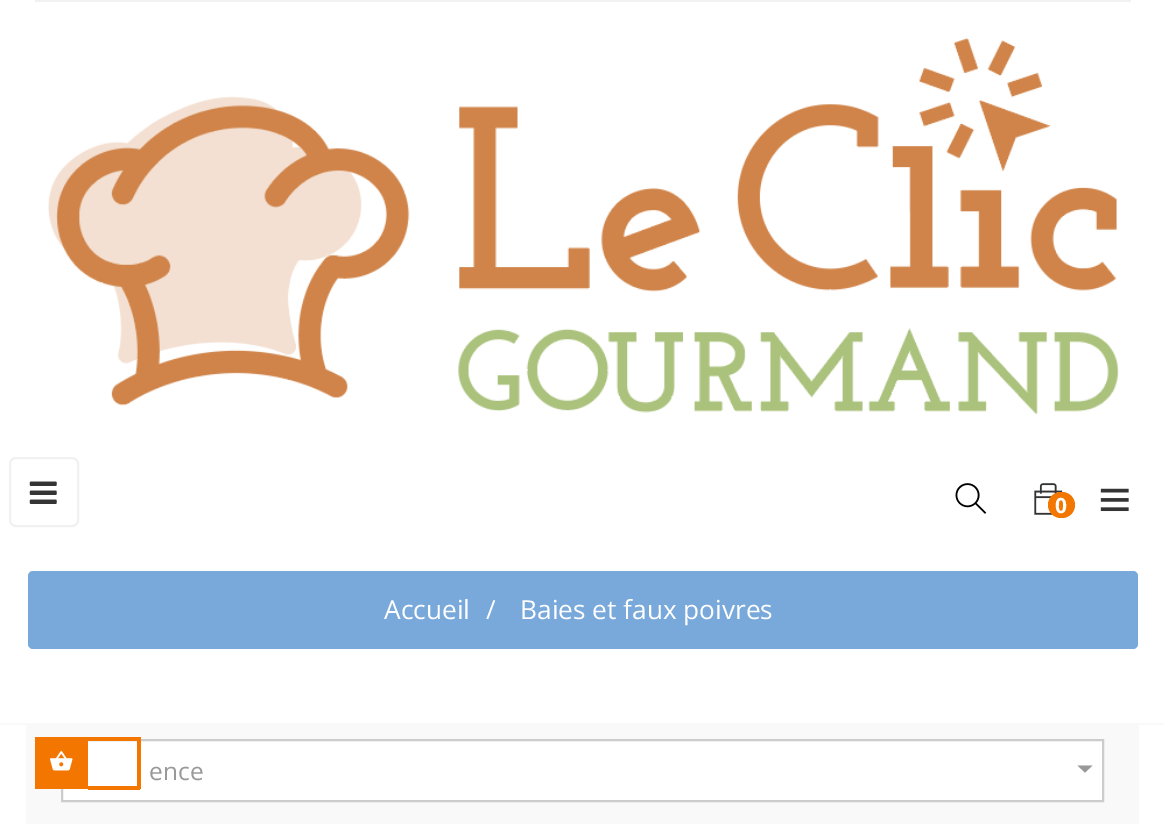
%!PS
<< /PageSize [1164 824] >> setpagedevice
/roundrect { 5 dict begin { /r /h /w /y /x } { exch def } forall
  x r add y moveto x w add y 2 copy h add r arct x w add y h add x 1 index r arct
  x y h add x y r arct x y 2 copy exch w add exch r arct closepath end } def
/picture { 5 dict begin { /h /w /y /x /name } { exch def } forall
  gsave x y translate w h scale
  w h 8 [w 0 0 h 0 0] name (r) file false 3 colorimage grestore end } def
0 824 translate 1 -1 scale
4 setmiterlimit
1 setgray
0 0 1164 824 rectfill
0.976 setgray
26 725 1113 99 rectfill
1 setgray
newpath 62 740 moveto 1103 740 lineto 1103 801 lineto 62 801 lineto closepath gsave fill grestore
0.8 setgray
2 setlinewidth
stroke
0.953 0.463 0 setrgbcolor
35 737 53 52 rectfill
(img1.rgb) 50 751 23 20 picture
88 737 52 4 rectfill
137 737 4 52 rectfill
88 786 52 4 rectfill
0.945 setgray
35 0 1096 2 rectfill
(img2.rgb) 48 37 1071 377 picture
10 458 68 68 6 roundrect stroke
(img3.rgb) 29 481 28 23 picture
(img4.rgb) 955 483 32 31 picture
(img5.rgb) 1034 483 29 32 picture
0.953 0.463 0 setrgbcolor
1048 492 27 26 13 roundrect fill
/OpenSans-Bold [21 0 0 -21 0 0] selectfont
1 setgray
1055 513 moveto (0) show
(img6.rgb) 1100 488 29 24 picture
0.475 0.659 0.855 setrgbcolor
28 571 1110 78 5 roundrect fill
/OpenSans-Regular [26.25 0 0 -26.25 0 0] selectfont
1 setgray
384 619 moveto (Accueil) show
486 619 moveto (/) show
520 619 moveto (Baies et faux poivres) show
0.976 setgray
0 723 1164 2 rectfill
/OpenSans-Regular [24.5 0 0 -24.5 0 0] selectfont
0.6 setgray
149 780 moveto (ence) show
newpath 1077.5 765.5 moveto 1092.5 765.5 lineto 1085 772.5 lineto closepath fill
showpage
